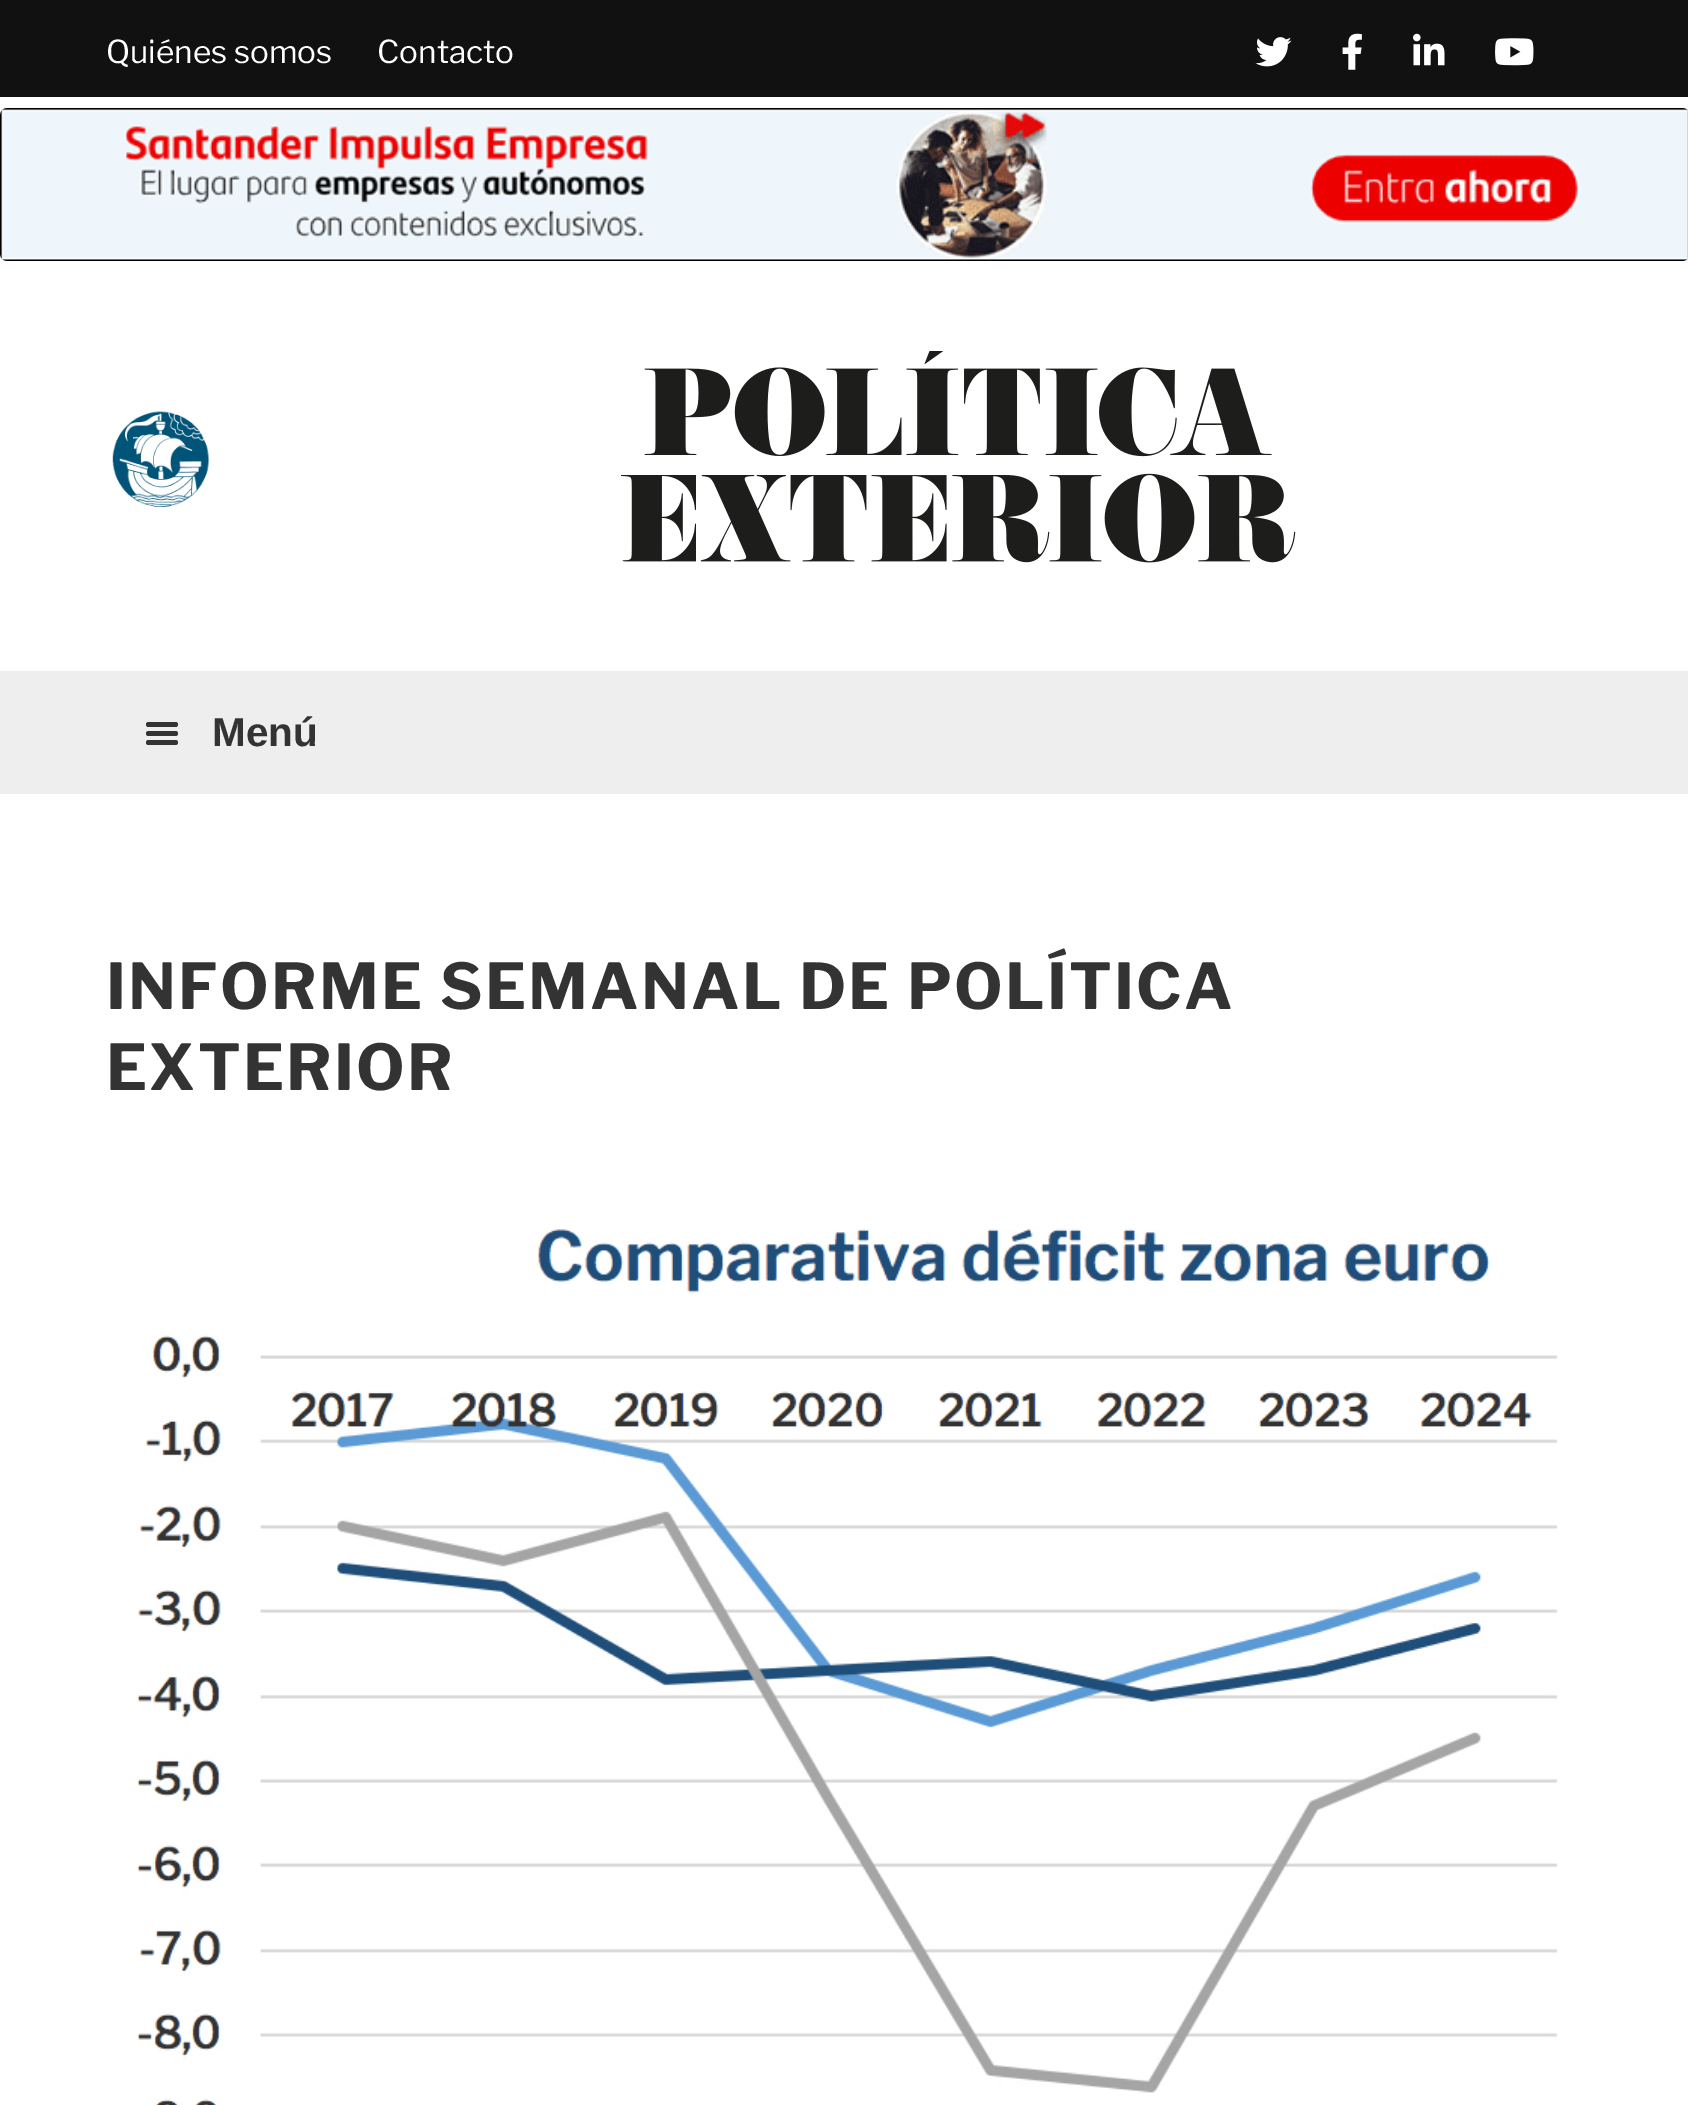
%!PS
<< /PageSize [1688 2105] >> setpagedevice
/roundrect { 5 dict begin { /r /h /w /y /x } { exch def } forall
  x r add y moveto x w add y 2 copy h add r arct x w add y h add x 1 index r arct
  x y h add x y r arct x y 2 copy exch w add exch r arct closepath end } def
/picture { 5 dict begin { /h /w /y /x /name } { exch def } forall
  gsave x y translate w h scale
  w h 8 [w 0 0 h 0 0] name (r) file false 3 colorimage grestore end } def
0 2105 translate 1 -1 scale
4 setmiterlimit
1 setgray
0 0 1688 2105 rectfill
0.067 setgray
0 0 1688 97 rectfill
/LibreFranklin-Regular [31.5 0 0 -31.5 0 0] selectfont
1 setgray
106 63 moveto (Quiénes somos) show
377 63 moveto (Contacto) show
(img1.rgb) 1255 37 37 30 picture
(img2.rgb) 1342 33 20 37 picture
(img3.rgb) 1413 33 32 33 picture
(img4.rgb) 1495 38 39 28 picture
(img5.rgb) 0 108 1688 153 picture
(img6.rgb) 112 411 98 96 picture
(img7.rgb) 621 351 675 212 picture
0.933 setgray
0 671 1688 123 rectfill
0.2 setgray
146 722 32 5 2.5 roundrect fill
146 731 32 5 2.5 roundrect fill
/LiberationSans-Bold [40.5 0 0 -40.5 0 0] selectfont
212 746 moveto (Menú) show
146 740 32 5 2.5 roundrect fill
/LibreFranklin-Bold [63 0 0 -63 0 0] selectfont
106 1009 moveto 2.25 0 (INFORME SEMANAL DE POLÍTICA) ashow
106 1090 moveto 2.25 0 (EXTERIOR) ashow
(img8.rgb) 137 1229 1421 876 picture
showpage
